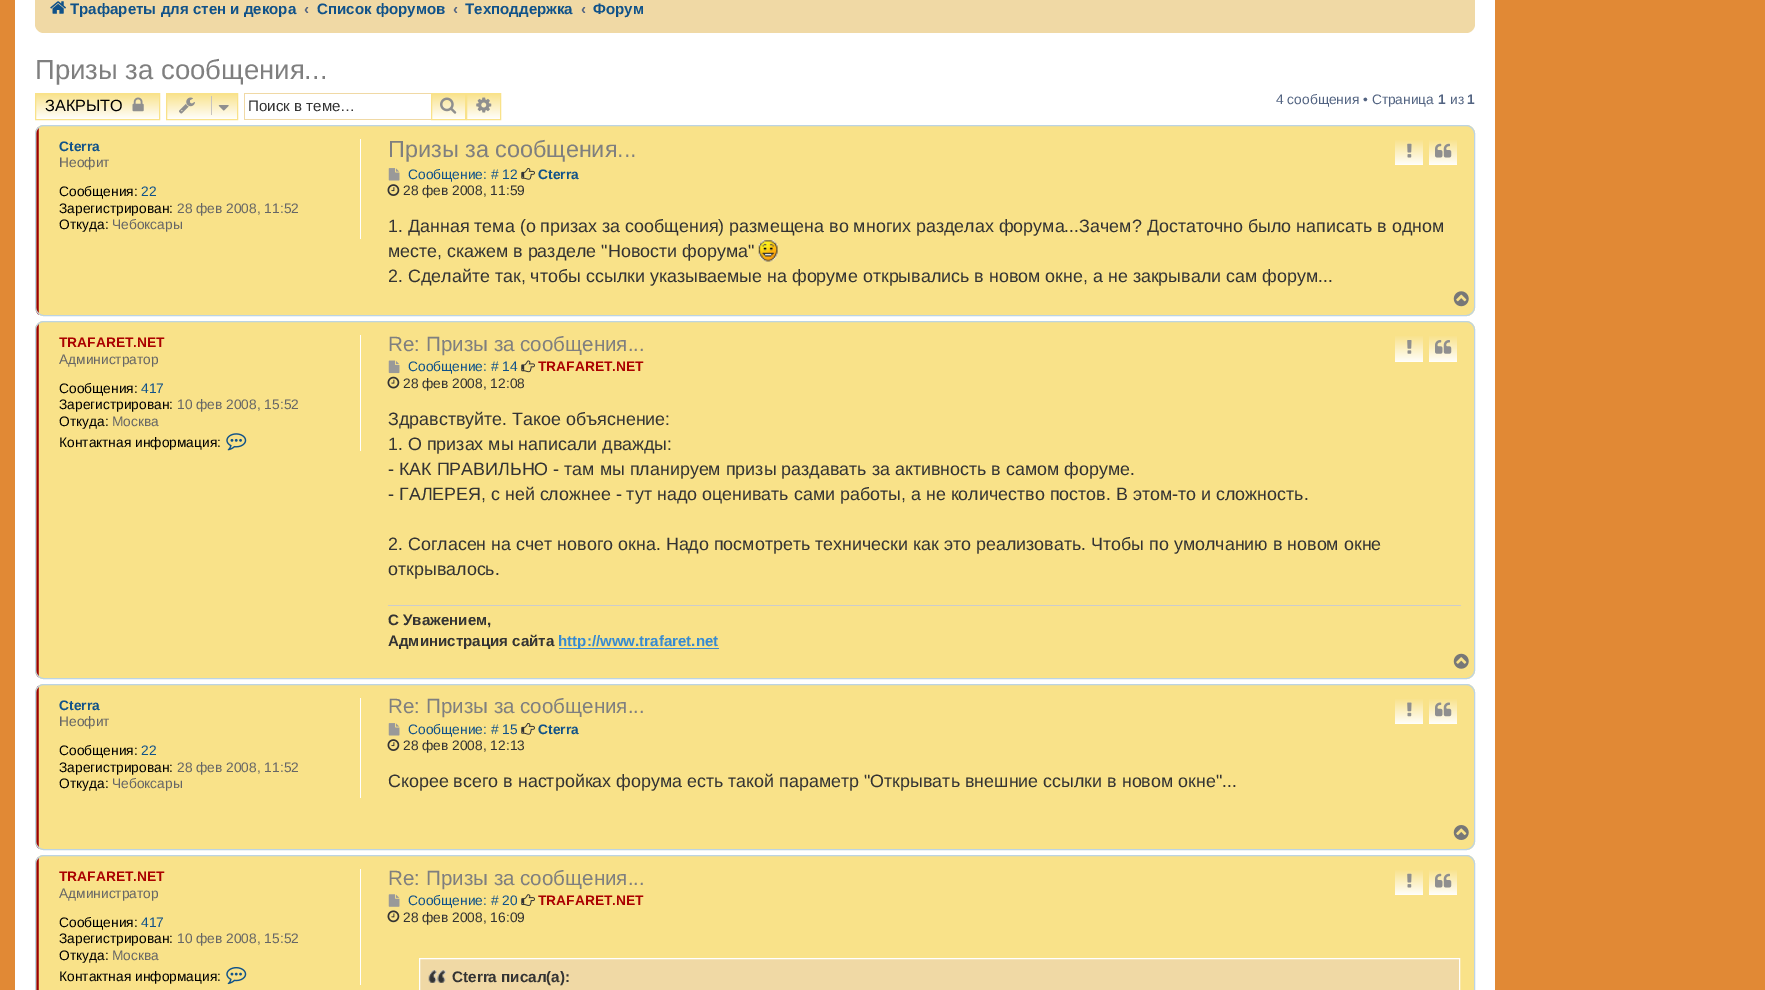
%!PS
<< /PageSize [1765 990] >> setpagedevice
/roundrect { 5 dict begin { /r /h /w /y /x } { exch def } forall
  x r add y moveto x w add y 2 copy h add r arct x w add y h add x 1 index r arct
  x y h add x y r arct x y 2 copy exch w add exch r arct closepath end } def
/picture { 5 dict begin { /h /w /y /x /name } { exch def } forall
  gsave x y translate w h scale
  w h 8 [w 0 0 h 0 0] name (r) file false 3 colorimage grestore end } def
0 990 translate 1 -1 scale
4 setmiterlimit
0.882 0.537 0.208 setrgbcolor
0 0 1765 990 rectfill
1 setgray
15 0 1480 990 rectfill
0.941 0.851 0.647 setrgbcolor
35 -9 1440 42 9 roundrect fill
(img1.rgb) 50 1 16 13 picture
/LiberationSans-Bold [15.1 0 0 -15.1 0 0] selectfont
0.063 0.322 0.537 setrgbcolor
70 14 moveto (Трафареты для стен и декора) show
0.325 0.392 0.51 setrgbcolor
304 14 moveto (‹) show
0.063 0.322 0.537 setrgbcolor
317 14 moveto (Список форумов) show
0.325 0.392 0.51 setrgbcolor
453 14 moveto (‹) show
0.063 0.322 0.537 setrgbcolor
465 14 moveto (Техподдержка) show
0.325 0.392 0.51 setrgbcolor
581 14 moveto (‹) show
0.063 0.322 0.537 setrgbcolor
593 14 moveto (Форум) show
/LiberationSans-Regular [27.5 0 0 -27.5 0 0] selectfont
0.498 setgray
35 79 moveto (Призы за сообщения...) show
gsave newpath 36 94 moveto 159 94 lineto 159 119 lineto 36 119 lineto closepath clip newpath
<< /ShadingType 2 /ColorSpace /DeviceRGB /Coords [98 93 98 120] /Extend [true true] /Function << /FunctionType 2 /Domain [0 1] /C0 [0.976 0.886 0.537] /C1 [1 1 1] /N 1 >> >> shfill grestore
0.976 0.886 0.537 setrgbcolor
35.5 93.5 124 26 rectstroke
/LiberationSans-Regular [16.25 0 0 -16.25 0 0] selectfont
0 setgray
45 111 moveto (ЗАКРЫТО) show
(img2.rgb) 132 97 12 15 picture
gsave newpath 167 94 moveto 237 94 lineto 237 119 lineto 167 119 lineto closepath clip newpath
<< /ShadingType 2 /ColorSpace /DeviceRGB /Coords [202 93 202 120] /Extend [true true] /Function << /FunctionType 2 /Domain [0 1] /C0 [0.976 0.886 0.537] /C1 [1 1 1] /N 1 >> >> shfill grestore
0.976 0.886 0.537 setrgbcolor
166.5 93.5 71 26 rectstroke
(img3.rgb) 179 97 16 17 picture
0.78 0.765 0.749 setrgbcolor
211 96 1 19 rectfill
(img4.rgb) 218 105 11 6 picture
0.941 0.851 0.647 setrgbcolor
244 93 187 1 rectfill
244 119 187 1 rectfill
244 93 1 27 rectfill
/LiberationSans-Regular [15.1 0 0 -15.1 0 0] selectfont
0.2 setgray
248 111 moveto (Поиск в теме…) show
gsave newpath 432 94 moveto 465 94 lineto 465 119 lineto 432 119 lineto closepath clip newpath
<< /ShadingType 2 /ColorSpace /DeviceRGB /Coords [449 93 449 120] /Extend [true true] /Function << /FunctionType 2 /Domain [0 1] /C0 [0.976 0.886 0.537] /C1 [1 1 1] /N 1 >> >> shfill grestore
0.976 0.886 0.537 setrgbcolor
431.5 93.5 34 26 rectstroke
(img5.rgb) 440 97 17 17 picture
gsave newpath 467 94 moveto 500 94 lineto 500 119 lineto 467 119 lineto closepath clip newpath
<< /ShadingType 2 /ColorSpace /DeviceRGB /Coords [484 93 484 120] /Extend [true true] /Function << /FunctionType 2 /Domain [0 1] /C0 [0.976 0.886 0.537] /C1 [1 1 1] /N 1 >> >> shfill grestore
466.5 93.5 34 26 rectstroke
(img6.rgb) 476 97 16 16 picture
/LiberationSans-Regular [13.75 0 0 -13.75 0 0] selectfont
0.325 0.392 0.51 setrgbcolor
1276 104 moveto (4 сообщения • Страница) show
/LiberationSans-Bold [13.75 0 0 -13.75 0 0] selectfont
1438 104 moveto (1) show
/LiberationSans-Regular [13.75 0 0 -13.75 0 0] selectfont
1450 104 moveto (из) show
/LiberationSans-Bold [13.75 0 0 -13.75 0 0] selectfont
1467 104 moveto (1) show
0.976 0.886 0.537 setrgbcolor
35 125 1440 191 9 roundrect fill
(img7.rgb) 36 127 3 188 picture
0.737 0.831 0.89 setrgbcolor
35.5 125.5 1439 190 8.5 roundrect stroke
1 setgray
360 139 1 100 rectfill
0.063 0.322 0.537 setrgbcolor
59 151 moveto (Cterra) show
/LiberationSans-Regular [13.75 0 0 -13.75 0 0] selectfont
0.4 setgray
59 167 moveto (Неофит) show
0 setgray
59 196 moveto (Сообщения:) show
0.063 0.322 0.537 setrgbcolor
141 196 moveto (22) show
0 setgray
59 213 moveto (Зарегистрирован:) show
0.4 setgray
177 213 moveto (28 фев 2008, 11:52) show
0 setgray
59 229 moveto (Откуда:) show
0.4 setgray
112 229 moveto (Чебоксары) show
/LiberationSans-Regular [23.4 0 0 -23.4 0 0] selectfont
0.498 setgray
388 157 moveto (Призы за сообщения...) show
gsave newpath 1395 140 moveto 1423 140 lineto 1423 165 lineto 1395 165 lineto closepath clip newpath
<< /ShadingType 2 /ColorSpace /DeviceRGB /Coords [1409 139 1409 166] /Extend [true true] /Function << /FunctionType 2 /Domain [0 1] /C0 [0.976 0.886 0.537] /C1 [1 1 1] /N 1 >> >> shfill grestore
(img8.rgb) 1407 143 5 15 picture
gsave newpath 1429 140 moveto 1457 140 lineto 1457 165 lineto 1429 165 lineto closepath clip newpath
<< /ShadingType 2 /ColorSpace /DeviceRGB /Coords [1443 139 1443 166] /Extend [true true] /Function << /FunctionType 2 /Domain [0 1] /C0 [0.976 0.886 0.537] /C1 [1 1 1] /N 1 >> >> shfill grestore
(img9.rgb) 1435 143 17 15 picture
(img10.rgb) 388 168 12 13 picture
/LiberationSans-Regular [13.75 0 0 -13.75 0 0] selectfont
0.063 0.322 0.537 setrgbcolor
408 179 moveto (Сообщение: # 12) show
(img11.rgb) 521 168 14 12 picture
/LiberationSans-Bold [13.75 0 0 -13.75 0 0] selectfont
538 179 moveto (Cterra) show
(img12.rgb) 387 184 13 12 picture
/LiberationSans-Regular [13.75 0 0 -13.75 0 0] selectfont
0.2 setgray
403 195 moveto (28 фев 2008, 11:59) show
/LiberationSans-Regular [17.88 0 0 -17.88 0 0] selectfont
388 232 moveto (1. Данная тема \(о призах за сообщения\) размещена во многих разделах форума...Зачем? Достаточно было написать в одном) show
388 257 moveto (месте, скажем в разделе "Новости форума") show
(img13.rgb) 758 240 20 22 picture
388 282 moveto (2. Сделайте так, чтобы ссылки указываемые на форуме открывались в новом окне, а не закрывали сам форум...) show
(img14.rgb) 1453 291 16 16 picture
0.976 0.886 0.537 setrgbcolor
35 321 1440 358 9 roundrect fill
(img15.rgb) 36 323 3 355 picture
0.737 0.831 0.89 setrgbcolor
35.5 321.5 1439 357 8.5 roundrect stroke
1 setgray
360 335 1 116 rectfill
/LiberationSans-Bold [13.75 0 0 -13.75 0 0] selectfont
0.667 0 0 setrgbcolor
59 347 moveto (TRAFARET.NET) show
/LiberationSans-Regular [13.75 0 0 -13.75 0 0] selectfont
0.4 setgray
59 364 moveto (Администратор) show
0 setgray
59 393 moveto (Сообщения:) show
0.063 0.322 0.537 setrgbcolor
141 393 moveto (417) show
0 setgray
59 409 moveto (Зарегистрирован:) show
0.4 setgray
177 409 moveto (10 фев 2008, 15:52) show
0 setgray
59 426 moveto (Откуда:) show
0.4 setgray
112 426 moveto (Москва) show
0 setgray
59 447 moveto (Контактная информация:) show
(img16.rgb) 226 433 21 18 picture
/LiberationSans-Regular [20.6 0 0 -20.6 0 0] selectfont
0.498 setgray
388 351 moveto (Re: Призы за сообщения...) show
gsave newpath 1395 336 moveto 1423 336 lineto 1423 362 lineto 1395 362 lineto closepath clip newpath
<< /ShadingType 2 /ColorSpace /DeviceRGB /Coords [1409 335 1409 363] /Extend [true true] /Function << /FunctionType 2 /Domain [0 1] /C0 [0.976 0.886 0.537] /C1 [1 1 1] /N 1 >> >> shfill grestore
(img17.rgb) 1407 340 5 14 picture
gsave newpath 1429 336 moveto 1457 336 lineto 1457 362 lineto 1429 362 lineto closepath clip newpath
<< /ShadingType 2 /ColorSpace /DeviceRGB /Coords [1443 335 1443 363] /Extend [true true] /Function << /FunctionType 2 /Domain [0 1] /C0 [0.976 0.886 0.537] /C1 [1 1 1] /N 1 >> >> shfill grestore
(img18.rgb) 1435 340 17 14 picture
(img19.rgb) 388 360 12 14 picture
/LiberationSans-Regular [13.75 0 0 -13.75 0 0] selectfont
0.063 0.322 0.537 setrgbcolor
408 371 moveto (Сообщение: # 14) show
(img20.rgb) 521 360 14 13 picture
/LiberationSans-Bold [13.75 0 0 -13.75 0 0] selectfont
0.667 0 0 setrgbcolor
538 371 moveto (TRAFARET.NET) show
(img21.rgb) 387 376 13 13 picture
/LiberationSans-Regular [13.75 0 0 -13.75 0 0] selectfont
0.2 setgray
403 388 moveto (28 фев 2008, 12:08) show
/LiberationSans-Regular [17.88 0 0 -17.88 0 0] selectfont
388 425 moveto (Здравствуйте. Такое объяснение:) show
388 450 moveto (1. О призах мы написали дважды:) show
388 475 moveto (- КАК ПРАВИЛЬНО - там мы планируем призы раздавать за активность в самом форуме.) show
388 500 moveto (- ГАЛЕРЕЯ, с ней сложнее - тут надо оценивать сами работы, а не количество постов. В этом-то и сложность.) show
388 550 moveto (2. Согласен на счет нового окна. Надо посмотреть технически как это реализовать. Чтобы по умолчанию в новом окне) show
388 575 moveto (открывалось.) show
0.8 setgray
388 605 1073 1 rectfill
/LiberationSans-Bold [15.1 0 0 -15.1 0 0] selectfont
0.2 setgray
388 625 moveto (С Уважением,) show
388 646 moveto (Администрация сайта) show
0.212 0.541 0.824 setrgbcolor
559 648 160 1 rectfill
558 646 moveto (http://www.trafaret.net) show
(img22.rgb) 1453 653 16 16 picture
0.976 0.886 0.537 setrgbcolor
35 684 1440 166 9 roundrect fill
(img23.rgb) 36 685 3 164 picture
0.737 0.831 0.89 setrgbcolor
35.5 684.5 1439 165 8.5 roundrect stroke
1 setgray
360 698 1 100 rectfill
/LiberationSans-Bold [13.75 0 0 -13.75 0 0] selectfont
0.063 0.322 0.537 setrgbcolor
59 710 moveto (Cterra) show
/LiberationSans-Regular [13.75 0 0 -13.75 0 0] selectfont
0.4 setgray
59 726 moveto (Неофит) show
0 setgray
59 755 moveto (Сообщения:) show
0.063 0.322 0.537 setrgbcolor
141 755 moveto (22) show
0 setgray
59 772 moveto (Зарегистрирован:) show
0.4 setgray
177 772 moveto (28 фев 2008, 11:52) show
0 setgray
59 788 moveto (Откуда:) show
0.4 setgray
112 788 moveto (Чебоксары) show
/LiberationSans-Regular [20.6 0 0 -20.6 0 0] selectfont
0.498 setgray
388 713 moveto (Re: Призы за сообщения...) show
gsave newpath 1395 699 moveto 1423 699 lineto 1423 724 lineto 1395 724 lineto closepath clip newpath
<< /ShadingType 2 /ColorSpace /DeviceRGB /Coords [1409 698 1409 725] /Extend [true true] /Function << /FunctionType 2 /Domain [0 1] /C0 [0.976 0.886 0.537] /C1 [1 1 1] /N 1 >> >> shfill grestore
(img24.rgb) 1407 702 5 15 picture
gsave newpath 1429 699 moveto 1457 699 lineto 1457 724 lineto 1429 724 lineto closepath clip newpath
<< /ShadingType 2 /ColorSpace /DeviceRGB /Coords [1443 698 1443 725] /Extend [true true] /Function << /FunctionType 2 /Domain [0 1] /C0 [0.976 0.886 0.537] /C1 [1 1 1] /N 1 >> >> shfill grestore
(img25.rgb) 1435 702 17 15 picture
(img10.rgb) 388 723 12 13 picture
/LiberationSans-Regular [13.75 0 0 -13.75 0 0] selectfont
0.063 0.322 0.537 setrgbcolor
408 734 moveto (Сообщение: # 15) show
(img11.rgb) 521 723 14 12 picture
/LiberationSans-Bold [13.75 0 0 -13.75 0 0] selectfont
538 734 moveto (Cterra) show
(img12.rgb) 387 739 13 12 picture
/LiberationSans-Regular [13.75 0 0 -13.75 0 0] selectfont
0.2 setgray
403 750 moveto (28 фев 2008, 12:13) show
/LiberationSans-Regular [17.88 0 0 -17.88 0 0] selectfont
388 787 moveto (Скорее всего в настройках форума есть такой параметр "Открывать внешние ссылки в новом окне"...) show
(img26.rgb) 1453 825 16 15 picture
0.976 0.886 0.537 setrgbcolor
35 855 1440 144 9 roundrect fill
(img27.rgb) 36 857 3 133 picture
0.737 0.831 0.89 setrgbcolor
35.5 855.5 1439 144 8.5 roundrect stroke
1 setgray
360 869 1 116 rectfill
/LiberationSans-Bold [13.75 0 0 -13.75 0 0] selectfont
0.667 0 0 setrgbcolor
59 881 moveto (TRAFARET.NET) show
/LiberationSans-Regular [13.75 0 0 -13.75 0 0] selectfont
0.4 setgray
59 898 moveto (Администратор) show
0 setgray
59 927 moveto (Сообщения:) show
0.063 0.322 0.537 setrgbcolor
141 927 moveto (417) show
0 setgray
59 943 moveto (Зарегистрирован:) show
0.4 setgray
177 943 moveto (10 фев 2008, 15:52) show
0 setgray
59 960 moveto (Откуда:) show
0.4 setgray
112 960 moveto (Москва) show
0 setgray
59 981 moveto (Контактная информация:) show
(img28.rgb) 226 967 21 18 picture
/LiberationSans-Regular [20.6 0 0 -20.6 0 0] selectfont
0.498 setgray
388 885 moveto (Re: Призы за сообщения...) show
gsave newpath 1395 870 moveto 1423 870 lineto 1423 895 lineto 1395 895 lineto closepath clip newpath
<< /ShadingType 2 /ColorSpace /DeviceRGB /Coords [1409 869 1409 896] /Extend [true true] /Function << /FunctionType 2 /Domain [0 1] /C0 [0.976 0.886 0.537] /C1 [1 1 1] /N 1 >> >> shfill grestore
(img8.rgb) 1407 873 5 15 picture
gsave newpath 1429 870 moveto 1457 870 lineto 1457 895 lineto 1429 895 lineto closepath clip newpath
<< /ShadingType 2 /ColorSpace /DeviceRGB /Coords [1443 869 1443 896] /Extend [true true] /Function << /FunctionType 2 /Domain [0 1] /C0 [0.976 0.886 0.537] /C1 [1 1 1] /N 1 >> >> shfill grestore
(img9.rgb) 1435 873 17 15 picture
(img29.rgb) 388 894 12 13 picture
/LiberationSans-Regular [13.75 0 0 -13.75 0 0] selectfont
0.063 0.322 0.537 setrgbcolor
408 905 moveto (Сообщение: # 20) show
(img30.rgb) 521 894 14 12 picture
/LiberationSans-Bold [13.75 0 0 -13.75 0 0] selectfont
0.667 0 0 setrgbcolor
538 905 moveto (TRAFARET.NET) show
(img31.rgb) 387 910 13 13 picture
/LiberationSans-Regular [13.75 0 0 -13.75 0 0] selectfont
0.2 setgray
403 922 moveto (28 фев 2008, 16:09) show
0.941 0.851 0.647 setrgbcolor
420 959 1039 31 rectfill
(img32.rgb) 428 970 19 13 picture
1 setgray
419.5 958.5 1040 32 rectstroke
/LiberationSans-Bold [15.25 0 0 -15.25 0 0] selectfont
0.2 setgray
452 982 moveto (Cterra писал\(а\):) show
showpage
